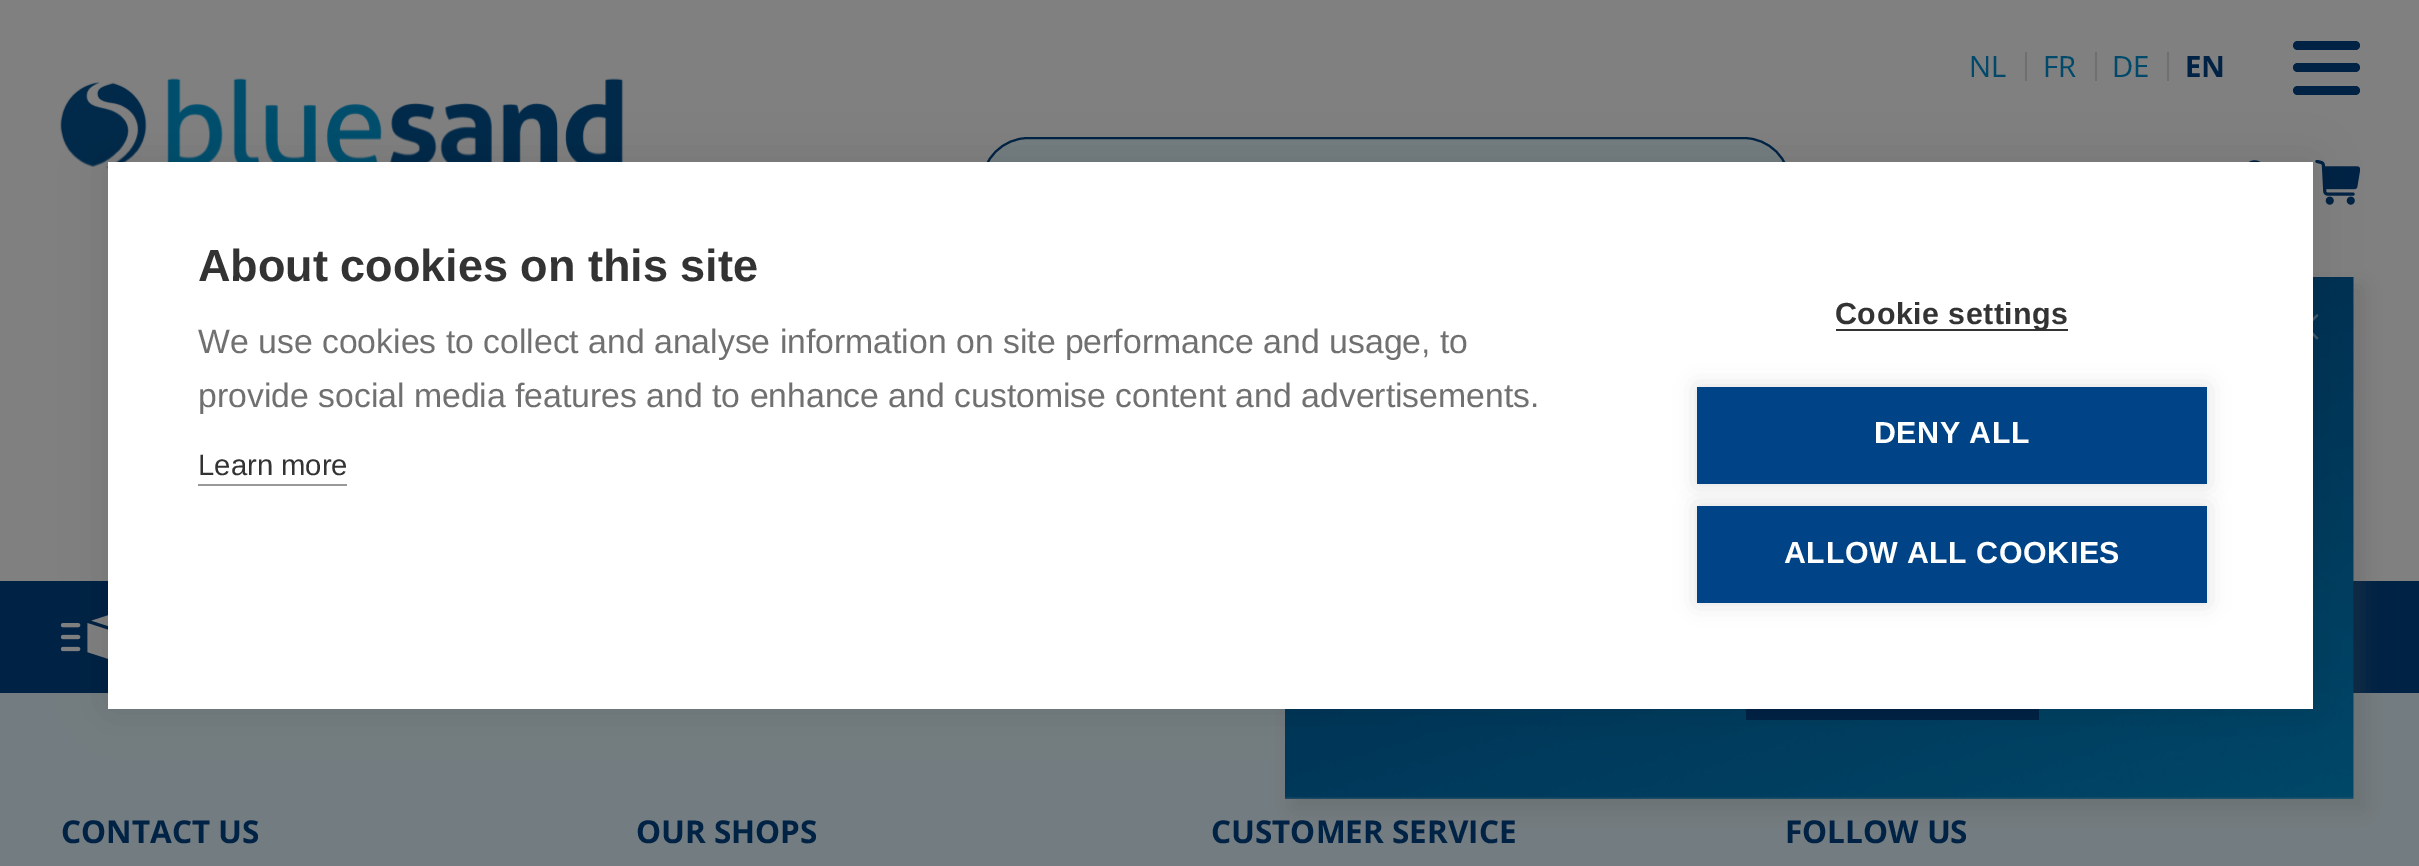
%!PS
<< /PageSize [2419 866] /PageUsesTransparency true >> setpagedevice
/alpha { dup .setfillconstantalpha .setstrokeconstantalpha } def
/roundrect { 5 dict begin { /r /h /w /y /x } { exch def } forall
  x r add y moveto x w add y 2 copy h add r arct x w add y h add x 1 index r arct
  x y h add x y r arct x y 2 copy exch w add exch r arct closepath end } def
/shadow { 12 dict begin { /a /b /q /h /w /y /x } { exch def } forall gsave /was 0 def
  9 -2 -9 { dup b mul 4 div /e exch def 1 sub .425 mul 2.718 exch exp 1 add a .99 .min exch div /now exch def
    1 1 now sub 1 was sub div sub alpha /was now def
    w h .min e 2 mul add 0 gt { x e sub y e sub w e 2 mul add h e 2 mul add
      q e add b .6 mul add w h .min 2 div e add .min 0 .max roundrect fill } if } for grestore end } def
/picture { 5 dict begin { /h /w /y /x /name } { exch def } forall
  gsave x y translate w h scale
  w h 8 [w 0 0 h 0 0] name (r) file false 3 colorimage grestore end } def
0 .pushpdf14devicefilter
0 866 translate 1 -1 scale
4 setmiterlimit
0.502 setgray
0 0 2419 866 rectfill
/OpenSans-Regular [29.25 0 0 -29.25 0 0] selectfont
0 0.286 0.416 setrgbcolor
1969 77 moveto (NL) show
0.435 setgray
2025 52 2 29 rectfill
0 0.286 0.416 setrgbcolor
2043 77 moveto (FR) show
0.435 setgray
2095 52 2 29 rectfill
0 0.286 0.416 setrgbcolor
2112 77 moveto (DE) show
0.435 setgray
2167 52 2 29 rectfill
/OpenSans-Bold [29.25 0 0 -29.25 0 0] selectfont
0 0.133 0.267 setrgbcolor
2185 77 moveto (EN) show
2293 63 67 9 4.5 roundrect fill
2293 41 67 9 4.5 roundrect fill
2293 86 67 9 4.5 roundrect fill
0.451 0.486 0.502 setrgbcolor
982 138 808 93 46.5 roundrect gsave fill grestore
0 0.133 0.267 setrgbcolor
2 setlinewidth
stroke
(img1.rgb) 2249 160 12 2 picture
(img2.rgb) 2315 160 45 45 picture
(img3.rgb) 60 78 564 91 picture
0 581 2419 112 rectfill
0.451 0.486 0.502 setrgbcolor
0 693 2419 173 rectfill
0.298 setgray
1294 286 1069 522 0 11 0.25 shadow
(img4.rgb) 1285 277 1069 522 picture
(img5.rgb) 2313 314 6 26 picture
0 0.133 0.267 setrgbcolor
1746 709 293 11 rectfill
(img6.rgb) 61 615 47 44 picture
0 setgray
108 162 2205 547 0 22.5 0.1 shadow
1 setgray
108 162 2205 547 rectfill
/LiberationSans-Bold [45 0 0 -45 0 0] selectfont
0.2 setgray
198 281 moveto (About cookies on this site) show
/LiberationSans-Regular [33.75 0 0 -33.75 0 0] selectfont
0.439 setgray
198 353 moveto (We use cookies to collect and analyse information on site performance and usage, to) show
198 407 moveto (provide social media features and to enhance and customise content and advertisements.) show
/LiberationSans-Regular [29.25 0 0 -29.25 0 0] selectfont
0.2 setgray
198 475 moveto (Learn more) show
0.6 setgray
198 484 149 2 rectfill
0.2 setgray
1836 329 232 2 rectfill
/LiberationSans-Bold [30.4 0 0 -30.4 0 0] selectfont
1835 324 moveto 0.5 0 (Cookie settings) ashow
0 setgray
1697 387 510 97 0 11 0.12 shadow
0 0.263 0.529 setrgbcolor
1697 387 510 97 rectfill
1 setgray
1874 443 moveto 0.5 0 (DENY ALL) ashow
0 setgray
1697 506 510 97 0 11 0.12 shadow
0 0.263 0.529 setrgbcolor
1697 506 510 97 rectfill
1 setgray
1784 563 moveto 0.5 0 (ALLOW ALL COOKIES) ashow
/OpenSans-Bold [31.5 0 0 -31.5 0 0] selectfont
0 0.133 0.267 setrgbcolor
61 843 moveto (CONTACT US) show
636 843 moveto (OUR SHOPS) show
1211 843 moveto (CUSTOMER SERVICE) show
1785 843 moveto (FOLLOW US) show
.poppdf14devicefilter showpage
